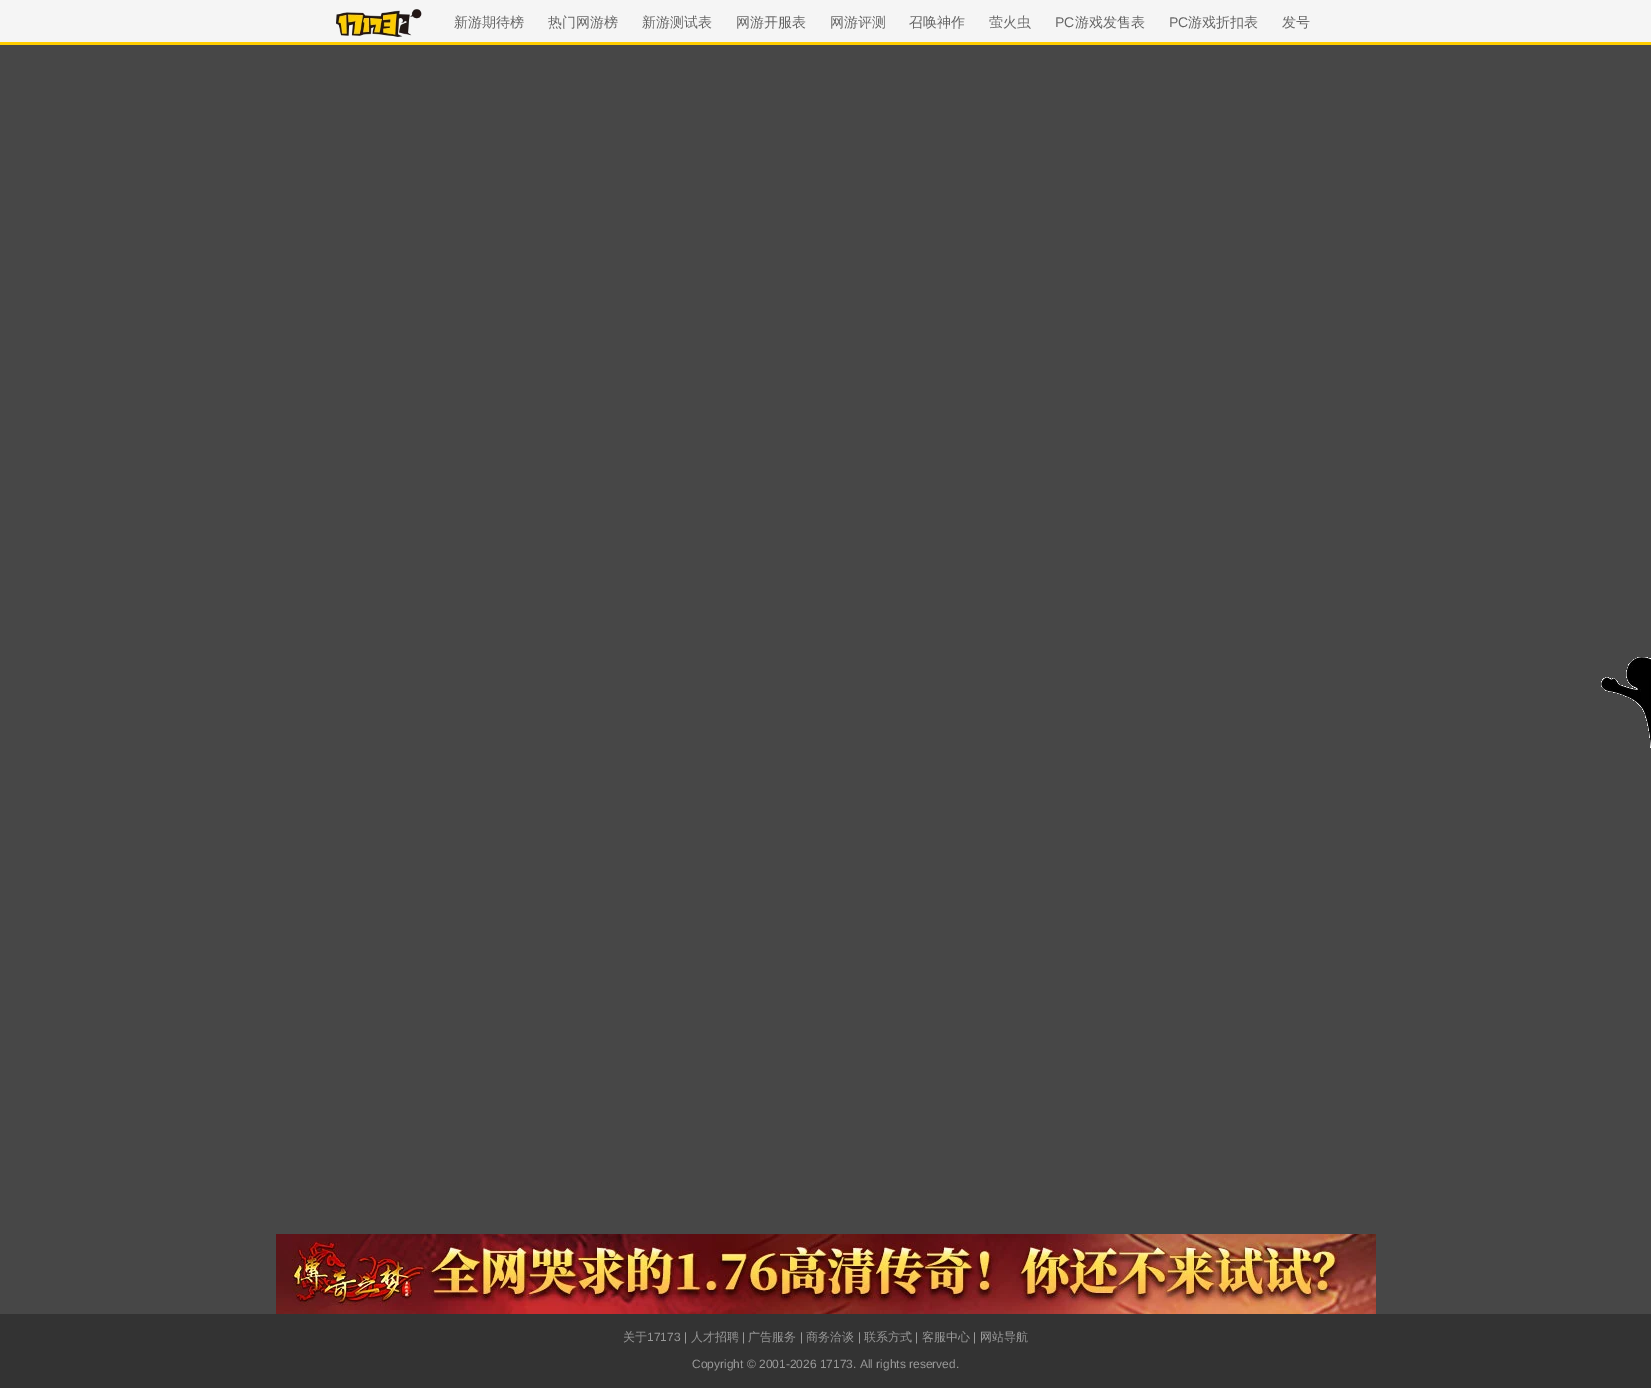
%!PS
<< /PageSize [1651 1388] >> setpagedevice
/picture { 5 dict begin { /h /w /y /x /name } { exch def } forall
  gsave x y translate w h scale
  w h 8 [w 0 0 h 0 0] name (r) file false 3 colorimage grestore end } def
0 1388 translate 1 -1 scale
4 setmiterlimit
0.278 setgray
0 0 1651 1388 rectfill
0.961 setgray
0 0 1651 42 rectfill
1 0.804 0 setrgbcolor
0 42 1651 3 rectfill
(img1.rgb) 336 9 86 28 picture
/WenQuanYiZenHei-Medium [14 0 0 -14 0 0] selectfont
0.4 setgray
454 27 moveto (新游期待榜) show
548 27 moveto (热门网游榜) show
642 27 moveto (新游测试表) show
736 27 moveto (网游开服表) show
830 27 moveto (网游评测) show
909 27 moveto (召唤神作) show
989 27 moveto (萤火虫) show
/LiberationSans-Regular [14 0 0 -14 0 0] selectfont
1055 27 moveto (PC) show
/WenQuanYiZenHei-Medium [14 0 0 -14 0 0] selectfont
1075 27 moveto (游戏发售表) show
/LiberationSans-Regular [14 0 0 -14 0 0] selectfont
1169 27 moveto (PC) show
/WenQuanYiZenHei-Medium [14 0 0 -14 0 0] selectfont
1188 27 moveto (游戏折扣表) show
1282 27 moveto (发号) show
(img2.rgb) 276 1234 1100 80 picture
(img3.rgb) 1601 657 50 91 picture
0.2 setgray
0 1314 1651 74 rectfill
/WenQuanYiZenHei-Medium [12 0 0 -12 0 0] selectfont
0.6 setgray
623 1341 moveto (关于) show
/LiberationSans-Regular [12 0 0 -12 0 0] selectfont
647 1341 moveto (17173 |) show
/WenQuanYiZenHei-Medium [12 0 0 -12 0 0] selectfont
691 1341 moveto (人才招聘) show
/LiberationSans-Regular [12 0 0 -12 0 0] selectfont
742 1341 moveto (|) show
/WenQuanYiZenHei-Medium [12 0 0 -12 0 0] selectfont
748 1341 moveto (广告服务) show
/LiberationSans-Regular [12 0 0 -12 0 0] selectfont
800 1341 moveto (|) show
/WenQuanYiZenHei-Medium [12 0 0 -12 0 0] selectfont
806 1341 moveto (商务洽谈) show
/LiberationSans-Regular [12 0 0 -12 0 0] selectfont
858 1341 moveto (|) show
/WenQuanYiZenHei-Medium [12 0 0 -12 0 0] selectfont
864 1341 moveto (联系方式) show
/LiberationSans-Regular [12 0 0 -12 0 0] selectfont
915 1341 moveto (|) show
/WenQuanYiZenHei-Medium [12 0 0 -12 0 0] selectfont
922 1341 moveto (客服中心) show
/LiberationSans-Regular [12 0 0 -12 0 0] selectfont
973 1341 moveto (|) show
/WenQuanYiZenHei-Medium [12 0 0 -12 0 0] selectfont
980 1341 moveto (网站导航) show
/LiberationSans-Regular [12 0 0 -12 0 0] selectfont
692 1368 moveto (Copyright © 2001-2026 17173. All rights reserved.) show
showpage
